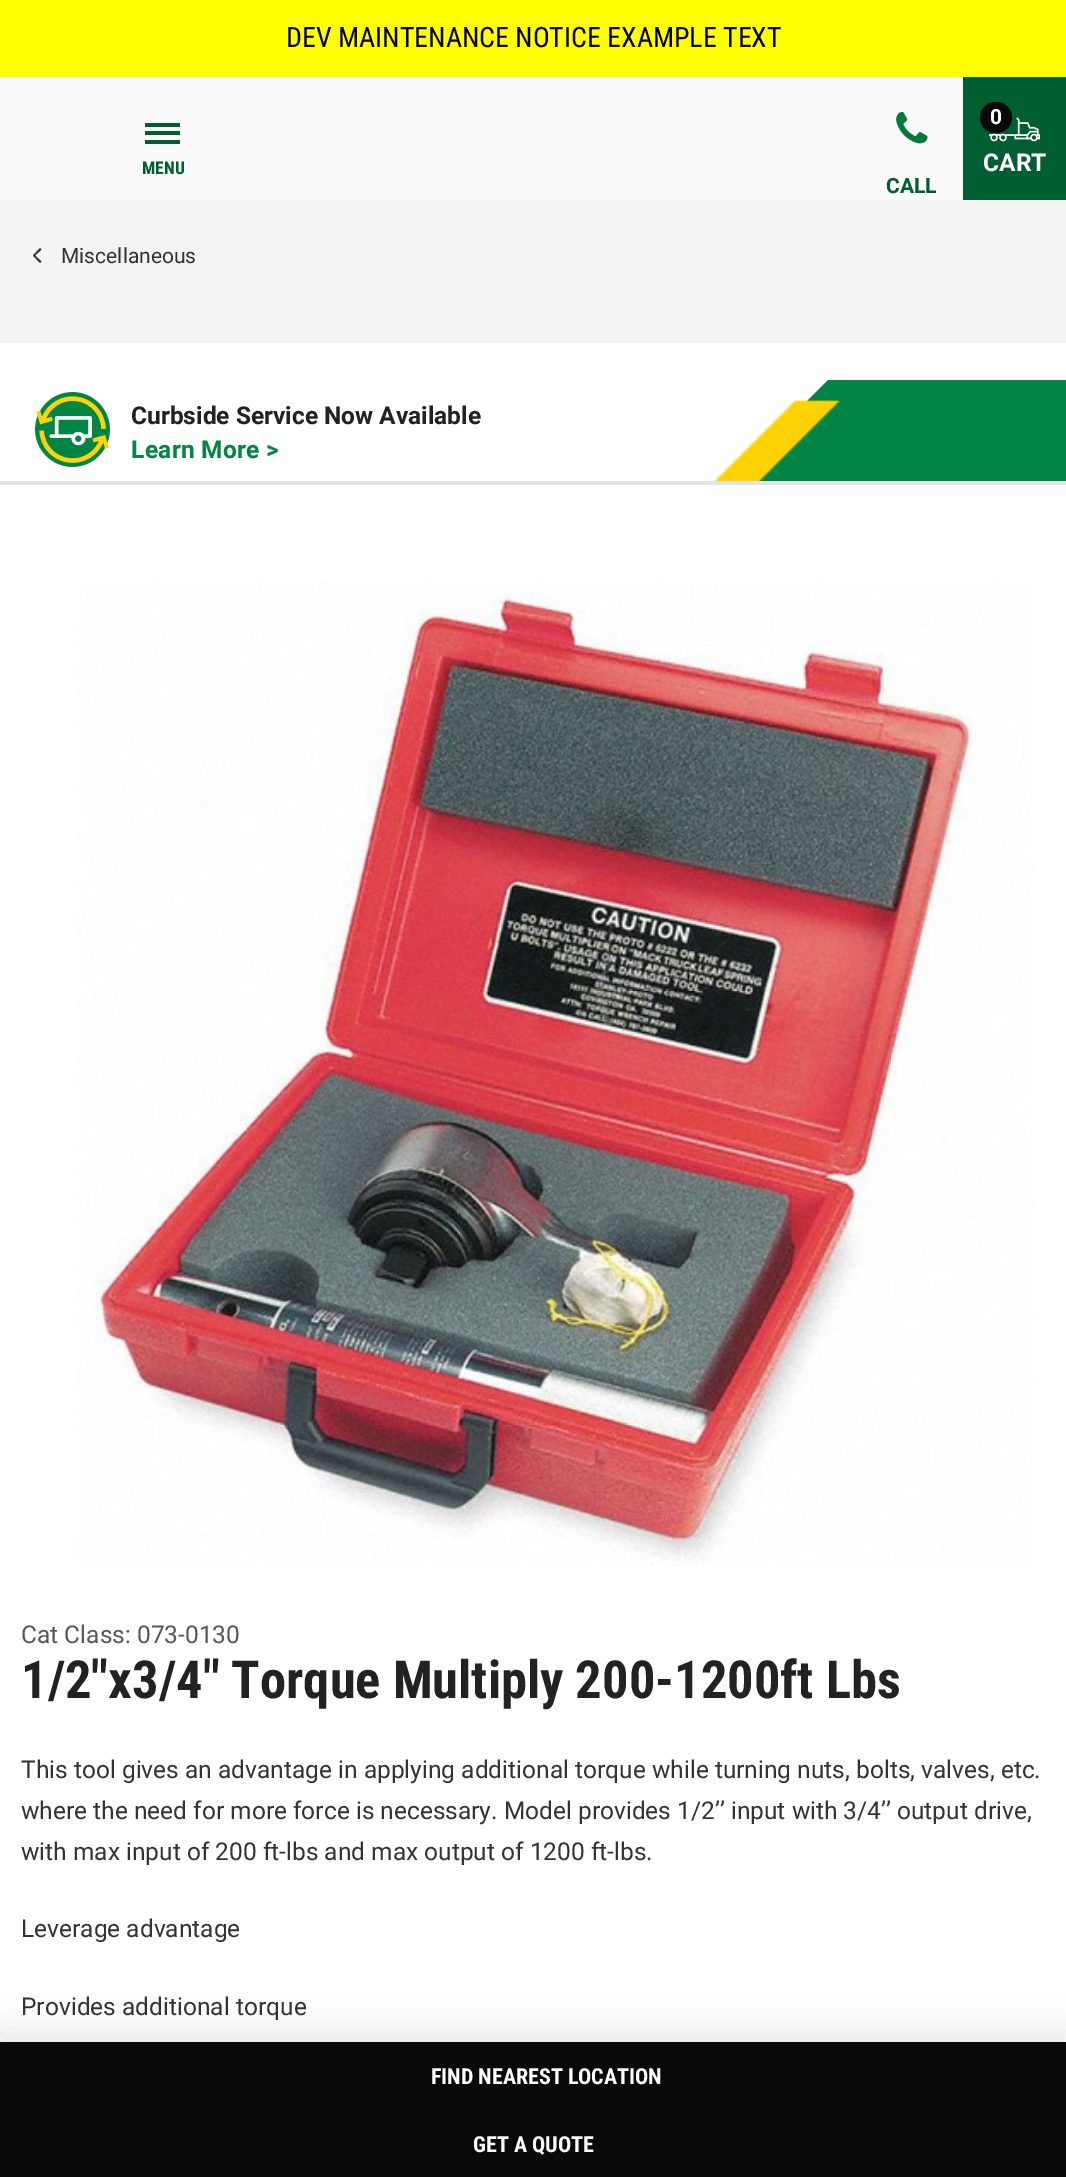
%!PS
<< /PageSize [1066 2177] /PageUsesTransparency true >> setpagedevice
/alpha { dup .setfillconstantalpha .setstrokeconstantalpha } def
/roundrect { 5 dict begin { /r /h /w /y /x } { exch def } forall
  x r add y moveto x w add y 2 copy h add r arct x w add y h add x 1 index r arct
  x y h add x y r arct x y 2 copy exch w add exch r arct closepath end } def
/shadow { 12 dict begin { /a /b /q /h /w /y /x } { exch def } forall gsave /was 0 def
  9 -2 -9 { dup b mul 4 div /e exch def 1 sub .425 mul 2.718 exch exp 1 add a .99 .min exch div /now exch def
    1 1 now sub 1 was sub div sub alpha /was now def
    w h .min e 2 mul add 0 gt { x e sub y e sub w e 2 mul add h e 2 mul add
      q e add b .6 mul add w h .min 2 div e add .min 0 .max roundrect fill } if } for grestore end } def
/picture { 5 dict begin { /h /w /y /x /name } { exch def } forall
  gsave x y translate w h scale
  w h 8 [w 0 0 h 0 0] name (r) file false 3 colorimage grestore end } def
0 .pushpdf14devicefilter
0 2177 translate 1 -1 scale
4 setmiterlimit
1 setgray
0 0 1066 2177 rectfill
1 1 0 setrgbcolor
0 0 1066 77 rectfill
/RobotoCondensed-Regular [28 0 0 -28 0 0] selectfont
0 setgray
286 47 moveto (DEV MAINTENANCE NOTICE EXAMPLE TEXT) show
0.98 setgray
0 77 963 123 rectfill
0 0.369 0.192 setrgbcolor
145 140 35 4 rectfill
145 131 35 4 rectfill
145 123 35 4 rectfill
/RobotoCondensed-Bold [17.5 0 0 -17.5 0 0] selectfont
142 174 moveto (MENU) show
963 77 103 123 rectfill
(img1.rgb) 989 117 51 25 picture
0.039 setgray
980 102 32 31 15.5 roundrect fill
/Roboto-Bold [21 0 0 -21 0 0] selectfont
1 setgray
990 124 moveto (0) show
/Roboto-Bold [24.5 0 0 -24.5 0 0] selectfont
983 171 moveto (CART) show
(img2.rgb) 896 112 32 32 picture
/Roboto-Bold [21 0 0 -21 0 0] selectfont
0 0.369 0.192 setrgbcolor
886 193 moveto (CALL) show
0.953 setgray
0 200 1066 143 rectfill
0.2 setgray
newpath 34 254.5 moveto 41.5 261.5 lineto 40 263 lineto 33 255.5 lineto closepath fill
newpath 40 248 moveto 41.5 249.5 lineto 34 256.5 lineto 33 255.5 lineto closepath fill
/Roboto-Regular [21 0 0 -21 0 0] selectfont
61 263 moveto (Miscellaneous) show
0.894 setgray
0 481 1066 4 rectfill
(img3.rgb) 35 392 75 75 picture
/Roboto-Bold [24.5 0 0 -24.5 0 0] selectfont
0.133 setgray
131 424 moveto (Curbside Service Now Available) show
0 0.522 0.271 setrgbcolor
131 458 moveto 0.3 0 (Learn More >) ashow
gsave
0 380 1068 101 rectclip
newpath -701 1909 moveto 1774 -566 lineto 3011 672 lineto 536 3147 lineto closepath fill
grestore
(img4.rgb) 713 400 127 81 picture
(img5.rgb) 76 582 958 985 picture
/Roboto-Regular [24.5 0 0 -24.5 0 0] selectfont
0.341 setgray
21 1643 moveto (Cat Class: 073-0130) show
/RobotoCondensed-Bold [52.5 0 0 -52.5 0 0] selectfont
0.133 setgray
21 1698 moveto (1/2"x3/4" Torque Multiply 200-1200ft Lbs) show
/Roboto-Regular [24.5 0 0 -24.5 0 0] selectfont
0.2 setgray
21 1778 moveto (This tool gives an advantage in applying additional torque while turning nuts, bolts, valves, etc.) show
21 1819 moveto (where the need for more force is necessary. Model provides 1/2’’ input with 3/4’’ output drive,) show
21 1860 moveto (with max input of 200 ft-lbs and max output of 1200 ft-lbs.) show
21 1937 moveto (Leverage advantage) show
21 2015 moveto (Provides additional torque) show
0 setgray
0 2032 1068 135 0 17.5 0.1 shadow
0.039 setgray
0 2042 1066 135 rectfill
/RobotoCondensed-Bold [22 0 0 -22 0 0] selectfont
1 setgray
431 2084 moveto (FIND NEAREST LOCATION) show
473 2152 moveto (GET A QUOTE) show
.poppdf14devicefilter showpage
